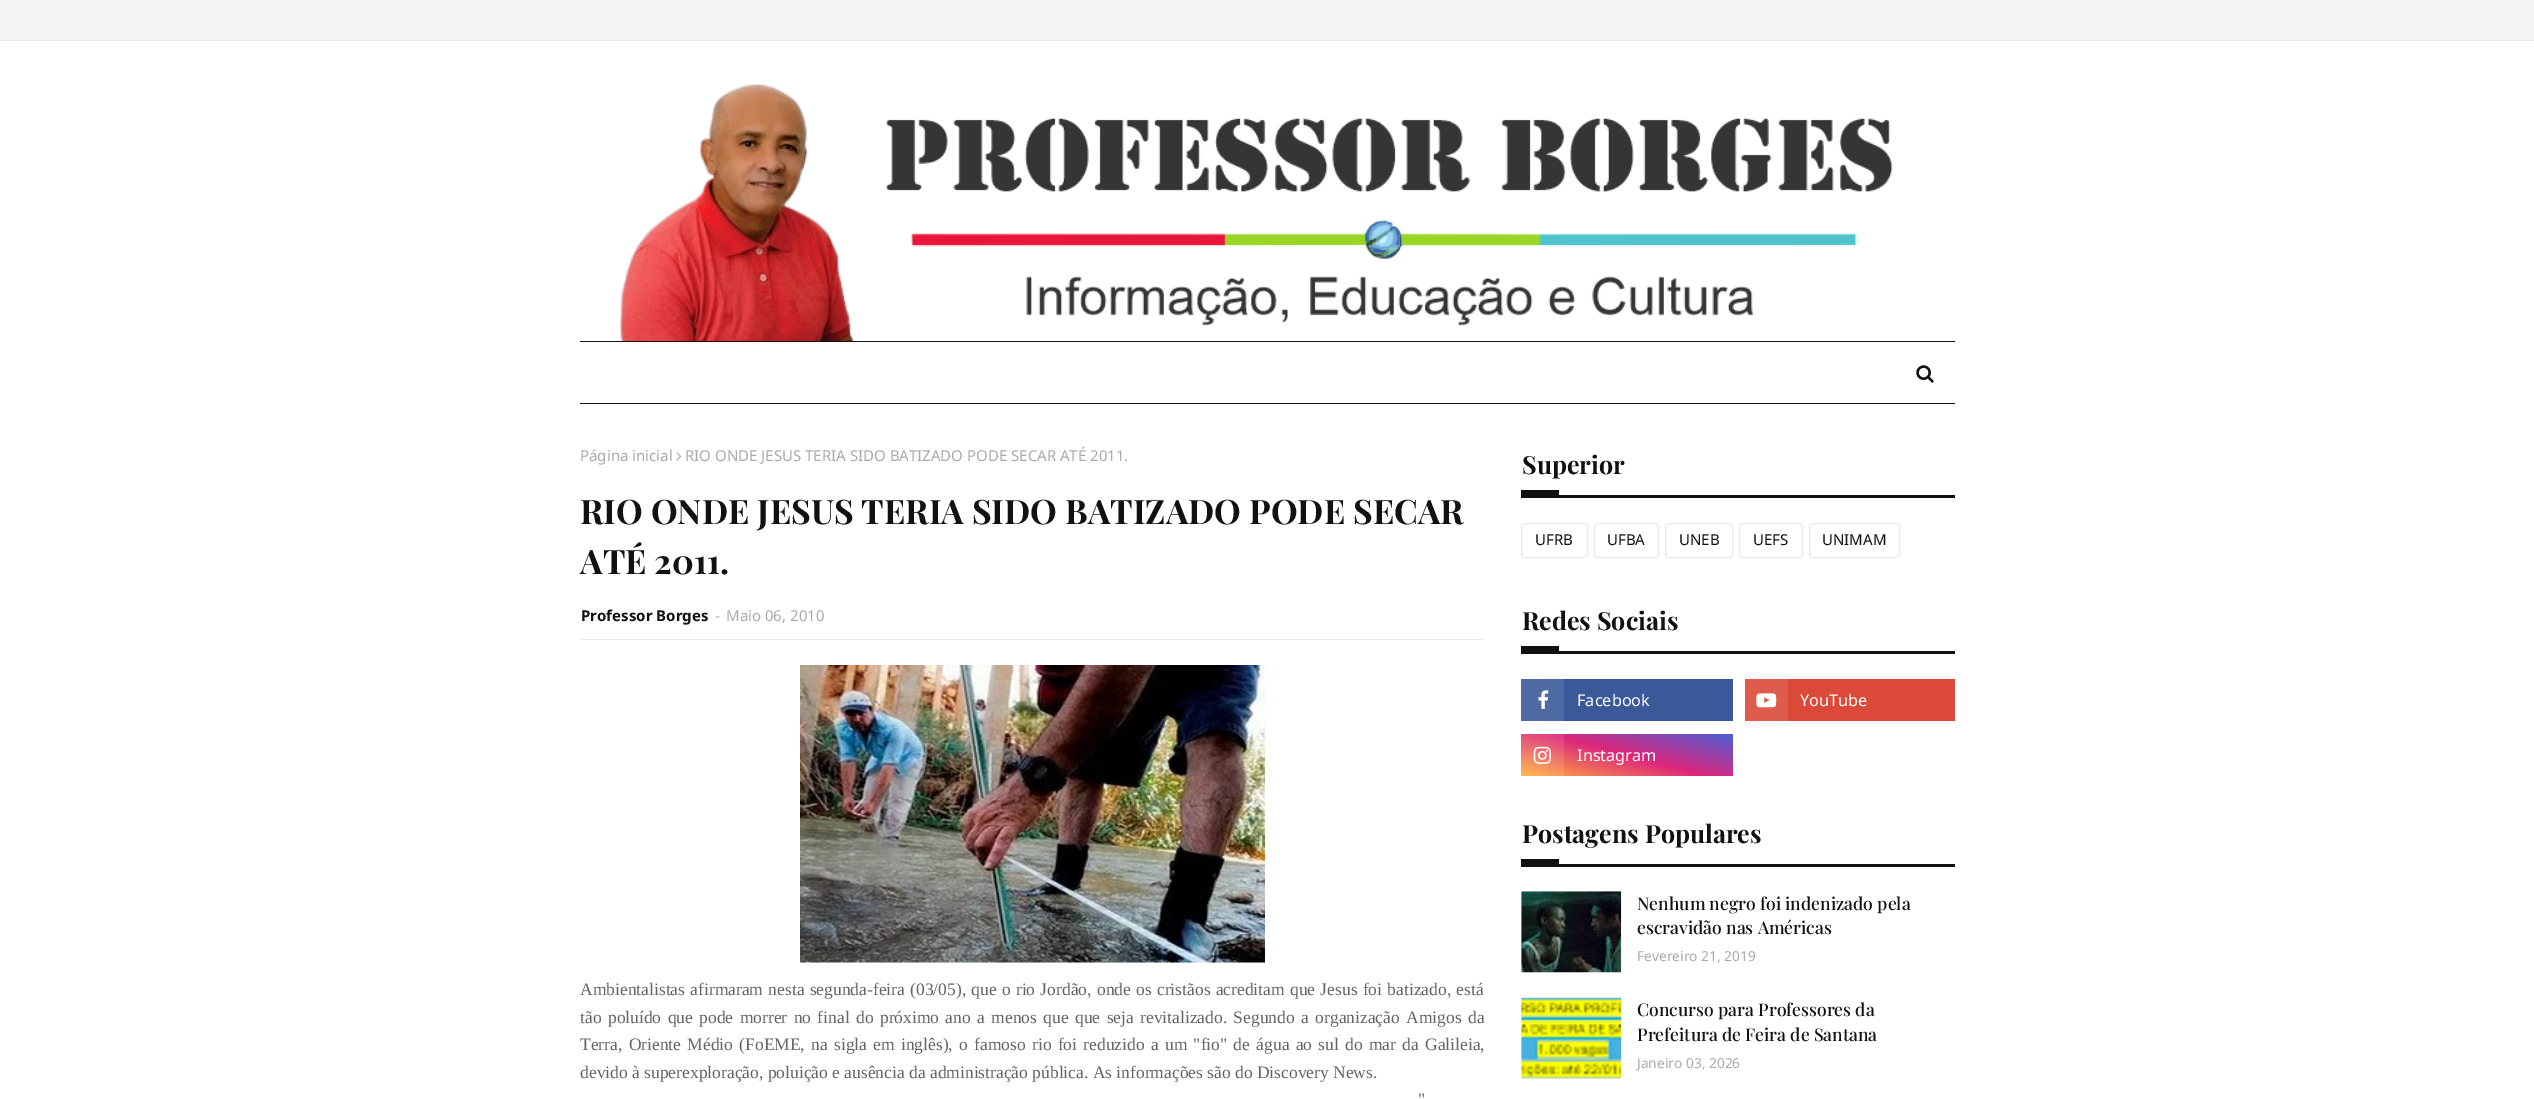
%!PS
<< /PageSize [2534 1099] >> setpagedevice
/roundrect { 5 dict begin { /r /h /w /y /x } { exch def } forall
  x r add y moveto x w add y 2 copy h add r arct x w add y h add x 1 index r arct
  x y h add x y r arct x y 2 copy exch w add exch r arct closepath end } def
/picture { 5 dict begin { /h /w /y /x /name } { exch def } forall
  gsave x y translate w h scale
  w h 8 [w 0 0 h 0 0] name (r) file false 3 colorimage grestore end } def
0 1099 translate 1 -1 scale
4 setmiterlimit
1 setgray
0 0 2534 1099 rectfill
0.957 setgray
0 0 2534 40 rectfill
0.918 setgray
0 40 2534 1 rectfill
(img1.rgb) 619 83 1274 258 picture
0.067 setgray
580 341 1375 1 rectfill
580 403 1375 1 rectfill
(img2.rgb) 1916 365 18 18 picture
/NotoSans-Regular [15 0 0 -15 0 0] selectfont
0.667 setgray
580 461 moveto (Página inicial) show
(img3.rgb) 676 452 6 9 picture
685 461 moveto (RIO ONDE JESUS TERIA SIDO BATIZADO PODE SECAR ATÉ 2011.) show
/PlayfairDisplay-Bold [33.75 0 0 -33.75 0 0] selectfont
0.067 setgray
580 524 moveto (RIO ONDE JESUS TERIA SIDO BATIZADO PODE SECAR) show
580 574 moveto (ATÉ 2011.) show
0.918 setgray
580 639 904 1 rectfill
/NotoSans-Bold [15 0 0 -15 0 0] selectfont
0.067 setgray
581 621 moveto (Professor Borges) show
/NotoSans-Regular [15 0 0 -15 0 0] selectfont
0.667 setgray
715 621 moveto (-) show
726 621 moveto (Maio 06, 2010) show
(img4.rgb) 800 665 465 298 picture
/LiberationSerif-Regular [17.5 0 0 -17.5 0 0] selectfont
0.396 setgray
580 995 moveto 0.9 0 32 (Ambientalistas afirmaram nesta segunda-feira \(03/05\), que o rio Jordão, onde os cristãos acreditam que Jesus foi batizado, está) widthshow
580 1023 moveto 2 0 32 (tão poluído que pode morrer no final do próximo ano a menos que que seja revitalizado. Segundo a organização Amigos da) widthshow
580 1050 moveto 1.9 0 32 (Terra, Oriente Médio \(FoEME, na sigla em inglês\), o famoso rio foi reduzido a um "fio" de água ao sul do mar da Galileia,) widthshow
580 1078 moveto (devido à superexploração, poluição e ausência da administração pública. As informações são do Discovery News.) show
1418 1105 moveto 5 0 32 (") widthshow
0.067 setgray
1521 495 434 3 rectfill
/PlayfairDisplay-Bold [25 0 0 -25 0 0] selectfont
1522 474 moveto (Superior) show
1521 490 38 5 rectfill
0.918 setgray
1521.5 523.5 66 34 3.5 roundrect stroke
/NotoSans-Regular [15 0 0 -15 0 0] selectfont
0.067 setgray
1535 545 moveto (UFRB) show
0.918 setgray
1594.5 523.5 64 34 3.5 roundrect stroke
0.067 setgray
1607 545 moveto (UFBA) show
0.918 setgray
1665.5 523.5 67 34 3.5 roundrect stroke
0.067 setgray
1679 545 moveto (UNEB) show
0.918 setgray
1739.5 523.5 63 34 3.5 roundrect stroke
0.067 setgray
1753 545 moveto (UEFS) show
0.918 setgray
1809.5 523.5 90 34 3.5 roundrect stroke
0.067 setgray
1822 545 moveto (UNIMAM) show
1521 651 434 3 rectfill
/PlayfairDisplay-Bold [25 0 0 -25 0 0] selectfont
1522 630 moveto (Redes Sociais) show
1521 646 38 5 rectfill
0.231 0.349 0.6 setrgbcolor
1564 679 169 42 rectfill
0.31 0.416 0.639 setrgbcolor
1521 679 43 42 rectfill
(img5.rgb) 1538 690 11 19 picture
/NotoSans-Regular [16.25 0 0 -16.25 0 0] selectfont
1 setgray
1577 706 moveto (Facebook) show
0.859 0.29 0.224 setrgbcolor
1788 679 167 42 rectfill
0.875 0.361 0.302 setrgbcolor
1745 679 43 42 rectfill
(img6.rgb) 1756 693 21 15 picture
1 setgray
1800 706 moveto (YouTube) show
gsave newpath 1564 734 moveto 1733 734 lineto 1733 776 lineto 1564 776 lineto closepath clip newpath
<< /ShadingType 2 /ColorSpace /DeviceRGB /Coords [1614 801 1639 709] /Extend [true true] /Function << /FunctionType 3 /Domain [0 1] /Functions [<< /FunctionType 2 /Domain [0 1] /C0 [1 0.694 0.239] /C1 [0.867 0.153 0.482] /N 1 >> << /FunctionType 2 /Domain [0 1] /C0 [0.867 0.153 0.482] /C1 [0.302 0.369 0.831] /N 1 >>] /Bounds [0.5] /Encode [0 1 0 1] >> >> shfill grestore
gsave newpath 1521 734 moveto 1564 734 lineto 1564 776 lineto 1521 776 lineto closepath clip newpath
<< /ShadingType 2 /ColorSpace /DeviceRGB /Coords [1614 801 1639 709] /Extend [true true] /Function << /FunctionType 3 /Domain [0 1] /Functions [<< /FunctionType 2 /Domain [0 1] /C0 [1 0.725 0.314] /C1 [0.878 0.239 0.533] /N 1 >> << /FunctionType 2 /Domain [0 1] /C0 [0.878 0.239 0.533] /C1 [0.373 0.431 0.847] /N 1 >>] /Bounds [0.5] /Encode [0 1 0 1] >> >> shfill grestore
(img7.rgb) 1533 746 18 18 picture
1577 761 moveto (Instagram) show
0.067 setgray
1521 864 434 3 rectfill
/PlayfairDisplay-Bold [25 0 0 -25 0 0] selectfont
1522 843 moveto (Postagens Populares) show
1521 859 38 5 rectfill
0.98 setgray
1521 891 100 82 rectfill
(img8.rgb) 1521 891 101 82 picture
/PlayfairDisplay-Medium [17.5 0 0 -17.5 0 0] selectfont
0.067 setgray
1637 910 moveto (Nenhum negro foi indenizado pela) show
1637 934 moveto (escravidão nas Américas) show
/NotoSans-Regular [13.75 0 0 -13.75 0 0] selectfont
0.667 setgray
1637 961 moveto (Fevereiro 21, 2019) show
0.98 setgray
1521 998 100 81 rectfill
(img9.rgb) 1521 997 101 82 picture
/PlayfairDisplay-Medium [17.5 0 0 -17.5 0 0] selectfont
0.067 setgray
1637 1016 moveto (Concurso para Professores da) show
1637 1041 moveto (Prefeitura de Feira de Santana) show
/NotoSans-Regular [13.75 0 0 -13.75 0 0] selectfont
0.667 setgray
1637 1068 moveto (Janeiro 03, 2026) show
showpage
